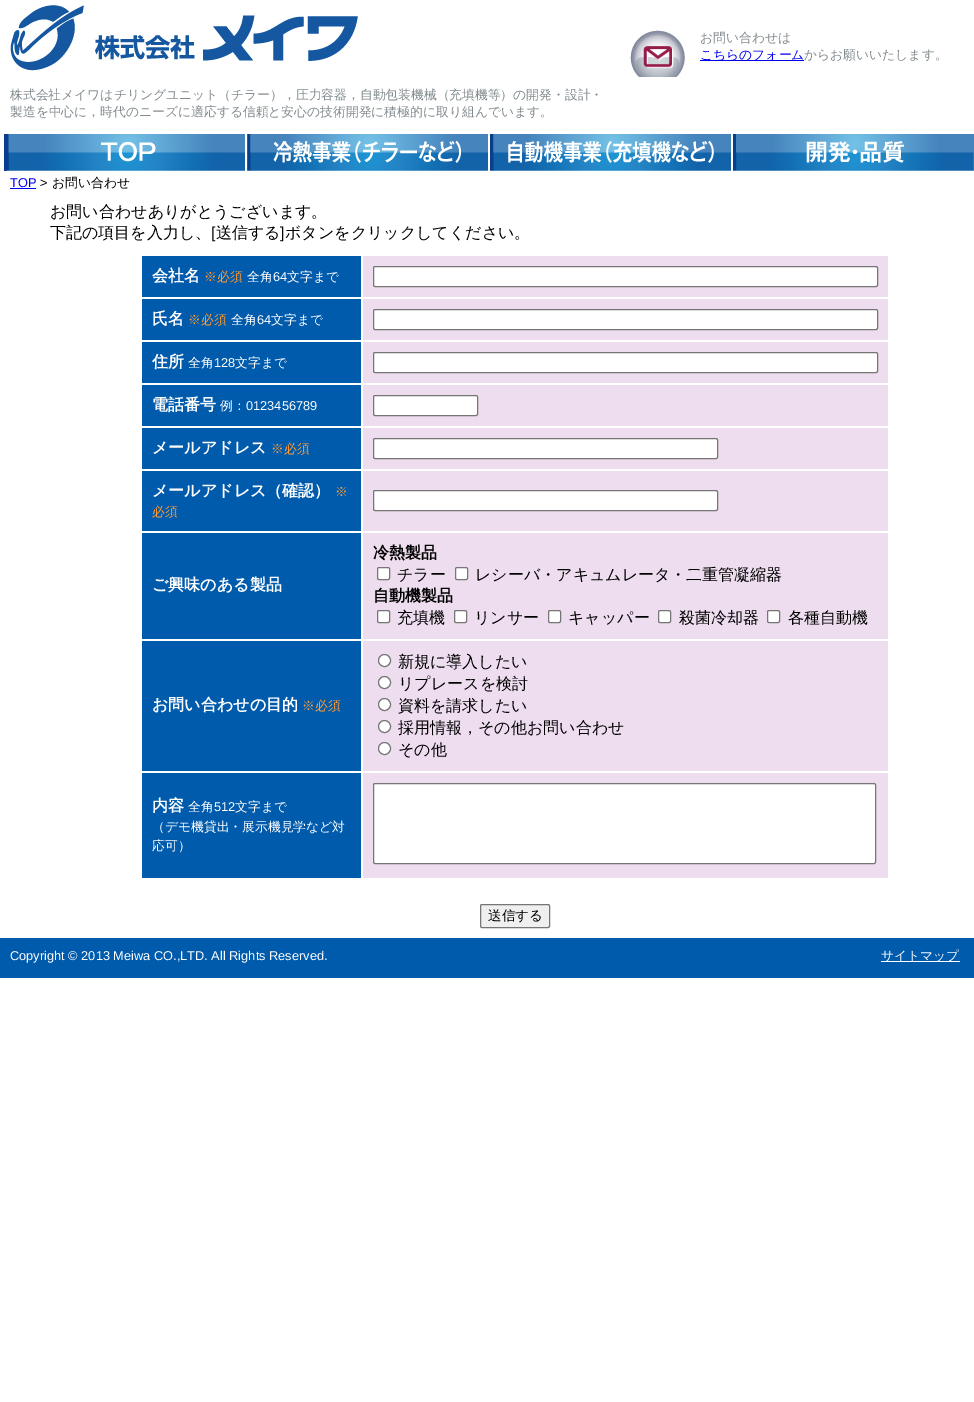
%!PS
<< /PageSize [974 1402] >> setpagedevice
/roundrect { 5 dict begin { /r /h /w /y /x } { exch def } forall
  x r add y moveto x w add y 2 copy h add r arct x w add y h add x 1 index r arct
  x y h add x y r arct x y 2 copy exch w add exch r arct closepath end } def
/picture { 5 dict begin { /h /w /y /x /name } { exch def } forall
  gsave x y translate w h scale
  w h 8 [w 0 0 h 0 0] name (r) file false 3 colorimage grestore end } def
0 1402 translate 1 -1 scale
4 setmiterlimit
1 setgray
0 0 974 1402 rectfill
(img1.rgb) 630 30 55 47 picture
/WenQuanYiZenHei-Medium [12.8 0 0 -12.8 0 0] selectfont
0.51 0.545 0.561 setrgbcolor
700 42 moveto (お問い合わせは) show
0 0 0.933 setrgbcolor
700 60 104 1 rectfill
700 59 moveto (こちらのフォーム) show
0.51 0.545 0.561 setrgbcolor
804 59 moveto (からお願いいたします。) show
(img2.rgb) 10 5 348 66 picture
10 99 moveto (株式会社メイワはチリングユニット（チラー），圧力容器，自動包装機械（充填機等）の開発・設計・) show
10 116 moveto (製造を中心に，時代のニーズに適応する信頼と安心の技術開発に積極的に取り組んでいます。) show
(img3.rgb) 4 134 241 37 picture
(img4.rgb) 247 134 241 37 picture
(img5.rgb) 490 134 241 37 picture
(img6.rgb) 733 134 241 37 picture
/LiberationSans-Regular [12.8 0 0 -12.8 0 0] selectfont
0 0 0.933 setrgbcolor
10 187 moveto (TOP) show
10 188 26 1 rectfill
0 setgray
40 187 moveto (>) show
/WenQuanYiZenHei-Medium [12.8 0 0 -12.8 0 0] selectfont
52 187 moveto (お問い合わせ) show
/WenQuanYiZenHei-Medium [16 0 0 -16 0 0] selectfont
50 217 moveto (お問い合わせありがとうございます。) show
50 238 moveto (下記の項目を入力し、) show
/LiberationSans-Regular [16 0 0 -16 0 0] selectfont
211 238 moveto ([) show
/WenQuanYiZenHei-Medium [16 0 0 -16 0 0] selectfont
216 238 moveto (送信する) show
/LiberationSans-Regular [16 0 0 -16 0 0] selectfont
280 238 moveto (]) show
/WenQuanYiZenHei-Medium [16 0 0 -16 0 0] selectfont
285 238 moveto (ボタンをクリックしてください。) show
0 0.357 0.675 setrgbcolor
142 256 219 41 rectfill
/WenQuanYiZenHei-Bold [16 0 0 -16 0 0] selectfont
1 setgray
152 281 moveto (会社名) show
/WenQuanYiZenHei-Medium [12.8 0 0 -12.8 0 0] selectfont
1 0.6 0.2 setrgbcolor
204 281 moveto (※必須) show
1 setgray
247 281 moveto (全角) show
/LiberationSans-Regular [12.8 0 0 -12.8 0 0] selectfont
273 281 moveto (64) show
/WenQuanYiZenHei-Medium [12.8 0 0 -12.8 0 0] selectfont
287 281 moveto (文字まで) show
0.933 0.867 0.933 setrgbcolor
363 256 525 41 rectfill
1 setgray
373.5 266.5 504 20 1.5 roundrect gsave fill grestore
0.463 setgray
stroke
0 0.357 0.675 setrgbcolor
142 299 219 41 rectfill
/WenQuanYiZenHei-Bold [16 0 0 -16 0 0] selectfont
1 setgray
152 324 moveto (氏名) show
/WenQuanYiZenHei-Medium [12.8 0 0 -12.8 0 0] selectfont
1 0.6 0.2 setrgbcolor
188 324 moveto (※必須) show
1 setgray
231 324 moveto (全角) show
/LiberationSans-Regular [12.8 0 0 -12.8 0 0] selectfont
257 324 moveto (64) show
/WenQuanYiZenHei-Medium [12.8 0 0 -12.8 0 0] selectfont
271 324 moveto (文字まで) show
0.933 0.867 0.933 setrgbcolor
363 299 525 41 rectfill
1 setgray
373.5 309.5 504 20 1.5 roundrect gsave fill grestore
0.463 setgray
stroke
0 0.357 0.675 setrgbcolor
142 342 219 41 rectfill
/WenQuanYiZenHei-Bold [16 0 0 -16 0 0] selectfont
1 setgray
152 367 moveto (住所) show
/WenQuanYiZenHei-Medium [12.8 0 0 -12.8 0 0] selectfont
188 367 moveto (全角) show
/LiberationSans-Regular [12.8 0 0 -12.8 0 0] selectfont
214 367 moveto (128) show
/WenQuanYiZenHei-Medium [12.8 0 0 -12.8 0 0] selectfont
235 367 moveto (文字まで) show
0.933 0.867 0.933 setrgbcolor
363 342 525 41 rectfill
1 setgray
373.5 352.5 504 20 1.5 roundrect gsave fill grestore
0.463 setgray
stroke
0 0.357 0.675 setrgbcolor
142 385 219 41 rectfill
/WenQuanYiZenHei-Bold [16 0 0 -16 0 0] selectfont
1 setgray
152 410 moveto (電話番号) show
/WenQuanYiZenHei-Medium [12.8 0 0 -12.8 0 0] selectfont
220 410 moveto (例：) show
/LiberationSans-Regular [12.8 0 0 -12.8 0 0] selectfont
246 410 moveto (0123456789) show
0.933 0.867 0.933 setrgbcolor
363 385 525 41 rectfill
1 setgray
373.5 395.5 104 20 1.5 roundrect gsave fill grestore
0.463 setgray
stroke
0 0.357 0.675 setrgbcolor
142 428 219 41 rectfill
/WenQuanYiZenHei-Bold [16 0 0 -16 0 0] selectfont
1 setgray
152 453 moveto (メールアドレス) show
/WenQuanYiZenHei-Medium [12.8 0 0 -12.8 0 0] selectfont
1 0.6 0.2 setrgbcolor
271 453 moveto (※必須) show
0.933 0.867 0.933 setrgbcolor
363 428 525 41 rectfill
1 setgray
373.5 438.5 344 20 1.5 roundrect gsave fill grestore
0.463 setgray
stroke
0 0.357 0.675 setrgbcolor
142 471 219 60 rectfill
/WenQuanYiZenHei-Bold [16 0 0 -16 0 0] selectfont
1 setgray
152 496 moveto (メールアドレス（確認）) show
/WenQuanYiZenHei-Medium [12.8 0 0 -12.8 0 0] selectfont
1 0.6 0.2 setrgbcolor
335 496 moveto (※) show
152 516 moveto (必須) show
0.933 0.867 0.933 setrgbcolor
363 471 525 60 rectfill
1 setgray
373.5 490.5 344 20 1.5 roundrect gsave fill grestore
0.463 setgray
stroke
0 0.357 0.675 setrgbcolor
142 533 219 106 rectfill
/WenQuanYiZenHei-Bold [16 0 0 -16 0 0] selectfont
1 setgray
152 590 moveto (ご興味のある製品) show
0.933 0.867 0.933 setrgbcolor
363 533 525 106 rectfill
0 setgray
373 558 moveto (冷熱製品) show
1 setgray
377.5 567.5 12 12 1.5 roundrect gsave fill grestore
0.463 setgray
stroke
/WenQuanYiZenHei-Medium [16 0 0 -16 0 0] selectfont
0 setgray
397 580 moveto (チラー) show
1 setgray
455.5 567.5 12 12 1.5 roundrect gsave fill grestore
0.463 setgray
stroke
0 setgray
475 580 moveto (レシーバ・アキュムレータ・二重管凝縮器) show
/WenQuanYiZenHei-Bold [16 0 0 -16 0 0] selectfont
373 601 moveto (自動機製品) show
1 setgray
377.5 610.5 12 12 1.5 roundrect gsave fill grestore
0.463 setgray
stroke
/WenQuanYiZenHei-Medium [16 0 0 -16 0 0] selectfont
0 setgray
397 623 moveto (充填機) show
1 setgray
454.5 610.5 12 12 1.5 roundrect gsave fill grestore
0.463 setgray
stroke
0 setgray
474 623 moveto (リンサー) show
1 setgray
548.5 610.5 12 12 1.5 roundrect gsave fill grestore
0.463 setgray
stroke
0 setgray
568 623 moveto (キャッパー) show
1 setgray
658.5 610.5 12 12 1.5 roundrect gsave fill grestore
0.463 setgray
stroke
0 setgray
679 623 moveto (殺菌冷却器) show
1 setgray
767.5 610.5 12 12 1.5 roundrect gsave fill grestore
0.463 setgray
stroke
0 setgray
788 623 moveto (各種自動機) show
0 0.357 0.675 setrgbcolor
142 641 219 130 rectfill
/WenQuanYiZenHei-Bold [16 0 0 -16 0 0] selectfont
1 setgray
152 710 moveto (お問い合わせの目的) show
/WenQuanYiZenHei-Medium [12.8 0 0 -12.8 0 0] selectfont
1 0.6 0.2 setrgbcolor
302 710 moveto (※必須) show
0.933 0.867 0.933 setrgbcolor
363 641 525 130 rectfill
1 setgray
newpath 384.5 660.5 6 0 360 arc closepath gsave fill grestore
0.463 setgray
stroke
/WenQuanYiZenHei-Medium [16 0 0 -16 0 0] selectfont
0 setgray
398 667 moveto (新規に導入したい) show
1 setgray
newpath 384.5 682.5 6 0 360 arc closepath gsave fill grestore
0.463 setgray
stroke
0 setgray
398 689 moveto (リプレースを検討) show
1 setgray
newpath 384.5 704.5 6 0 360 arc closepath gsave fill grestore
0.463 setgray
stroke
0 setgray
398 711 moveto (資料を請求したい) show
1 setgray
newpath 384.5 726.5 6 0 360 arc closepath gsave fill grestore
0.463 setgray
stroke
0 setgray
398 733 moveto (採用情報，その他お問い合わせ) show
1 setgray
newpath 384.5 748.5 6 0 360 arc closepath gsave fill grestore
0.463 setgray
stroke
0 setgray
398 755 moveto (その他) show
0 0.357 0.675 setrgbcolor
142 773 219 105 rectfill
/WenQuanYiZenHei-Bold [16 0 0 -16 0 0] selectfont
1 setgray
152 811 moveto (内容) show
/WenQuanYiZenHei-Medium [12.8 0 0 -12.8 0 0] selectfont
188 811 moveto (全角) show
/LiberationSans-Regular [12.8 0 0 -12.8 0 0] selectfont
214 811 moveto (512) show
/WenQuanYiZenHei-Medium [12.8 0 0 -12.8 0 0] selectfont
235 811 moveto (文字まで) show
152 831 moveto (（デモ機貸出・展示機見学など対) show
152 850 moveto (応可）) show
0.933 0.867 0.933 setrgbcolor
363 773 525 105 rectfill
1 setgray
373.5 783.5 502 80 1.5 roundrect gsave fill grestore
0.463 setgray
stroke
0.937 setgray
480.5 904.5 69 23 1.5 roundrect gsave fill grestore
0.463 setgray
stroke
/WenQuanYiZenHei-Medium [13.5 0 0 -13.5 0 0] selectfont
0 setgray
488 920 moveto (送信する) show
0 0.357 0.675 setrgbcolor
0 938 974 40 rectfill
/LiberationSans-Regular [12.8 0 0 -12.8 0 0] selectfont
1 setgray
10 960 moveto (Copyright © 2013 Meiwa CO.,LTD. All Rights Reserved.) show
881 961 79 1 rectfill
/WenQuanYiZenHei-Medium [12.8 0 0 -12.8 0 0] selectfont
881 960 moveto (サイトマップ) show
showpage
